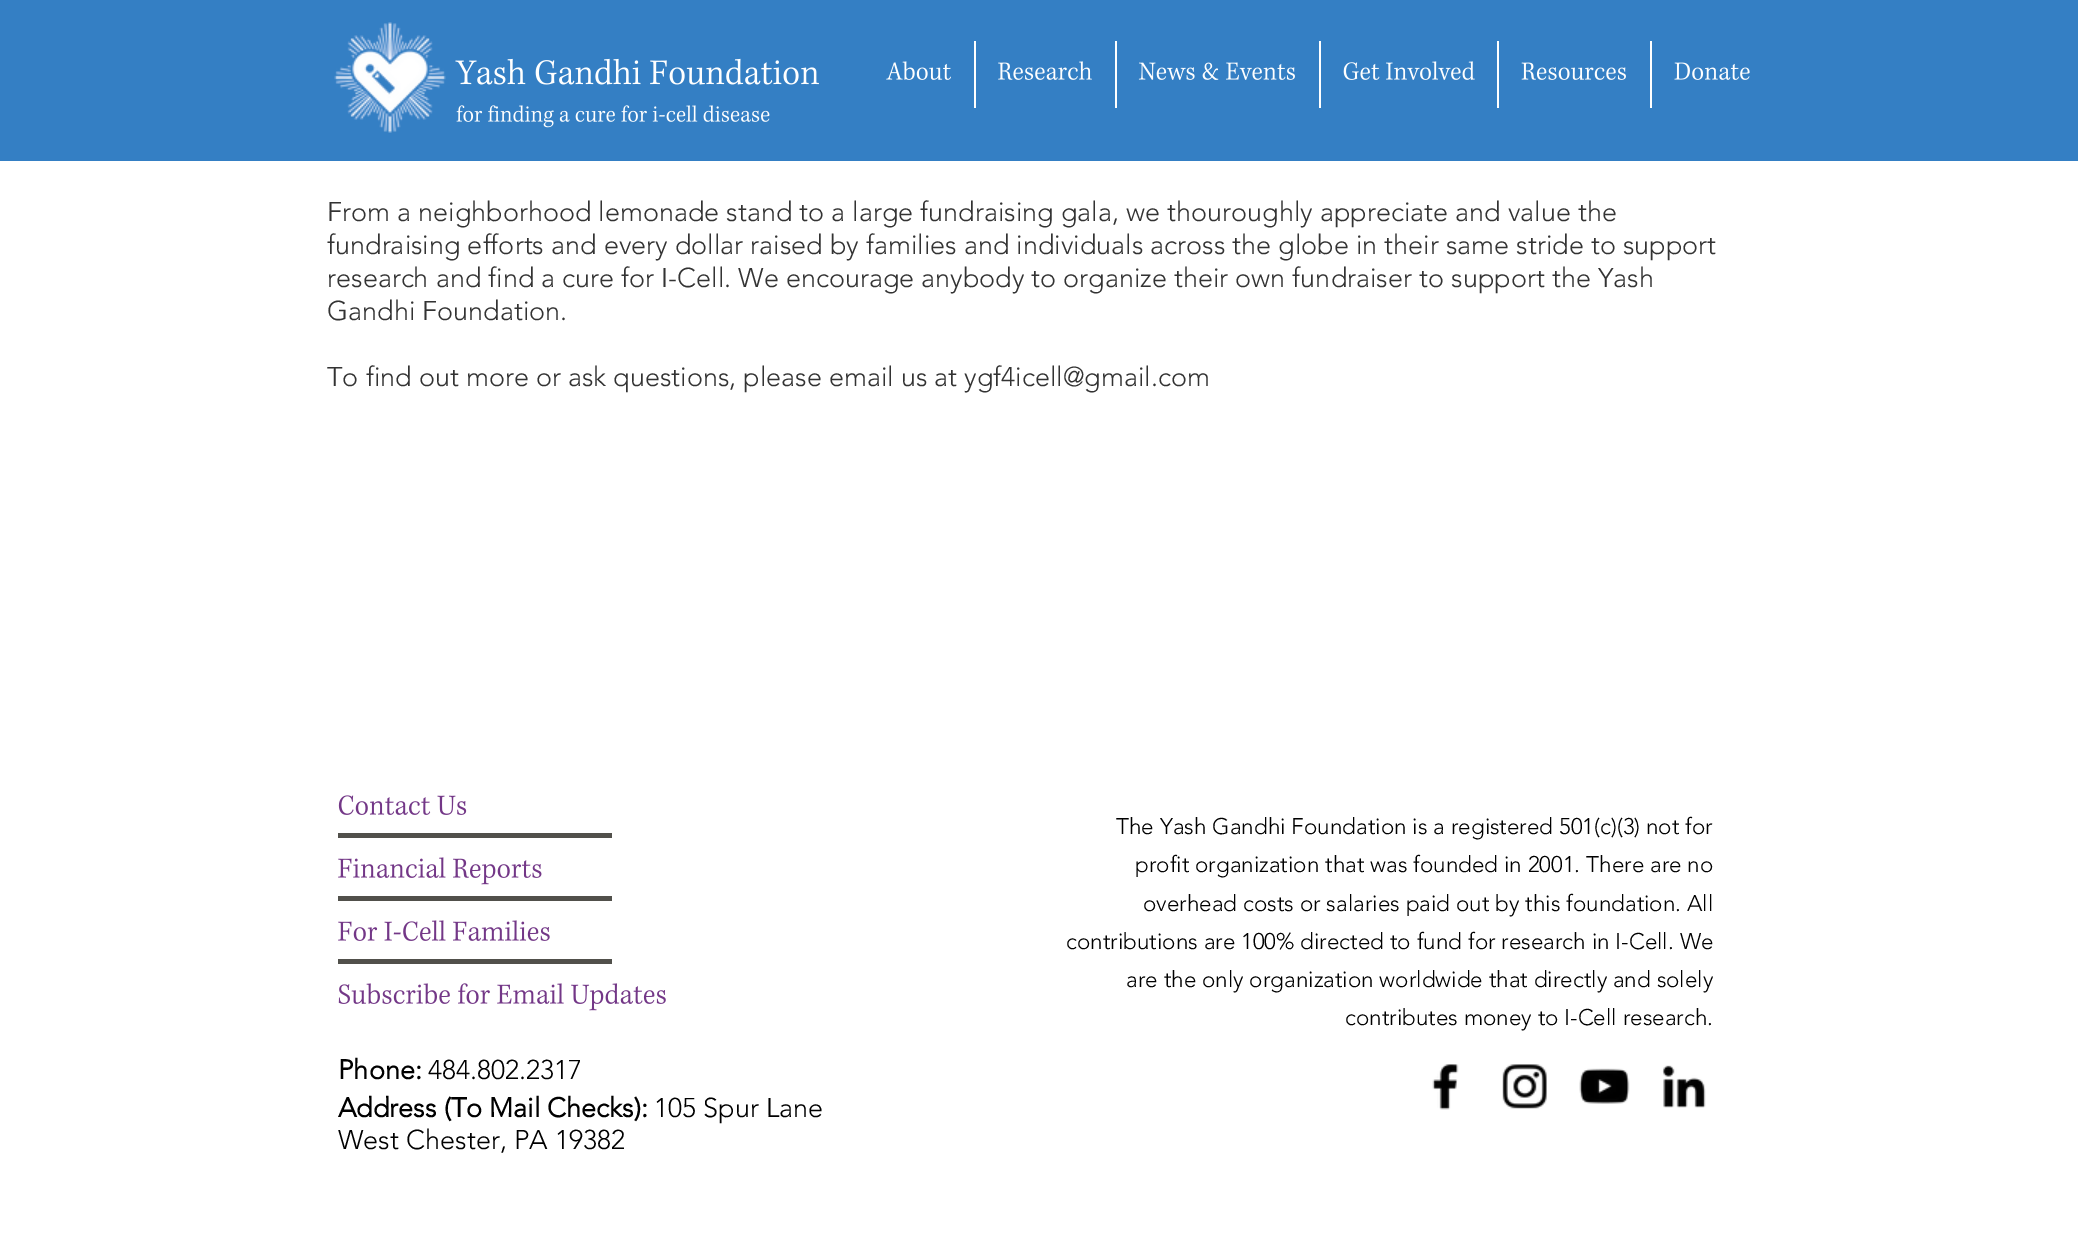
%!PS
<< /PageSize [2078 1234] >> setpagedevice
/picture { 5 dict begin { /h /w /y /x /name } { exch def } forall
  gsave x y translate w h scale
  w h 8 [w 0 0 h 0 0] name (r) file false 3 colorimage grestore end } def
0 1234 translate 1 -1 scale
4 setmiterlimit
1 setgray
0 0 2078 1234 rectfill
0.204 0.498 0.769 setrgbcolor
0 0 2078 161 rectfill
(img1.rgb) 334 22 112 111 picture
(img2.rgb) 455 58 364 27 picture
(img3.rgb) 886 61 65 19 picture
1 setgray
974 41 2 67 rectfill
(img4.rgb) 998 61 94 19 picture
1115 41 2 67 rectfill
(img5.rgb) 1138 62 157 18 picture
1319 41 2 67 rectfill
(img6.rgb) 1343 61 132 19 picture
1497 41 2 67 rectfill
(img7.rgb) 1521 62 105 18 picture
1650 41 2 67 rectfill
(img8.rgb) 1674 62 76 18 picture
(img9.rgb) 456 105 314 23 picture
/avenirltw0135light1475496-Light [27 0 0 -27 0 0] selectfont
0.2 setgray
327 221 moveto (From a neighborhood lemonade stand to a large fundraising gala, we thouroughly appreciate and value the) show
327 254 moveto (fundraising efforts and every dollar raised by families and individuals across the globe in their same stride to support) show
327 287 moveto (research and find a cure for I-Cell. We encourage anybody to organize their own fundraiser to support the Yash) show
327 320 moveto (Gandhi Foundation.) show
327 386 moveto (To find out more or ask questions, please email us at ygf4icell@gmail.com) show
(img10.rgb) 338 795 129 20 picture
0.318 0.314 0.294 setrgbcolor
338 833 274 5 rectfill
/avenirltw0135light1475496-Light [22.5 0 0 -22.5 0 0] selectfont
0 setgray
1116 834 moveto (The Yash Gandhi Foundation is a registered 501\(c\)\(3\) not for) show
1135 872 moveto (profit organization that was founded in 2001. There are no) show
1143 911 moveto (overhead costs or salaries paid out by this foundation. All) show
1066 949 moveto (contributions are 100% directed to fund for research in I-Cell. We) show
1126 987 moveto (are the only organization worldwide that directly and solely) show
1345 1025 moveto (contributes money to I-Cell research.) show
(img11.rgb) 338 857 204 28 picture
0.318 0.314 0.294 setrgbcolor
338 896 274 5 rectfill
(img12.rgb) 338 920 212 21 picture
338 959 274 5 rectfill
(img13.rgb) 338 983 328 28 picture
/avenirltw0135light1475496-Bold [27 0 0 -27 0 0] selectfont
0 setgray
338 1079 moveto (Phone:) show
/avenirltw0135light1475496-Light [27 0 0 -27 0 0] selectfont
428 1079 moveto (484.802.2317) show
/avenirltw0135light1475496-Bold [27 0 0 -27 0 0] selectfont
338 1117 moveto (Address \(To Mail Checks\):) show
/avenirltw0135light1475496-Light [27 0 0 -27 0 0] selectfont
654 1117 moveto (105 Spur Lane) show
338 1149 moveto (West Chester, PA 19382) show
(img14.rgb) 1432 1064 27 46 picture
(img15.rgb) 1502 1064 45 45 picture
(img16.rgb) 1579 1068 51 36 picture
(img17.rgb) 1662 1065 44 43 picture
showpage
